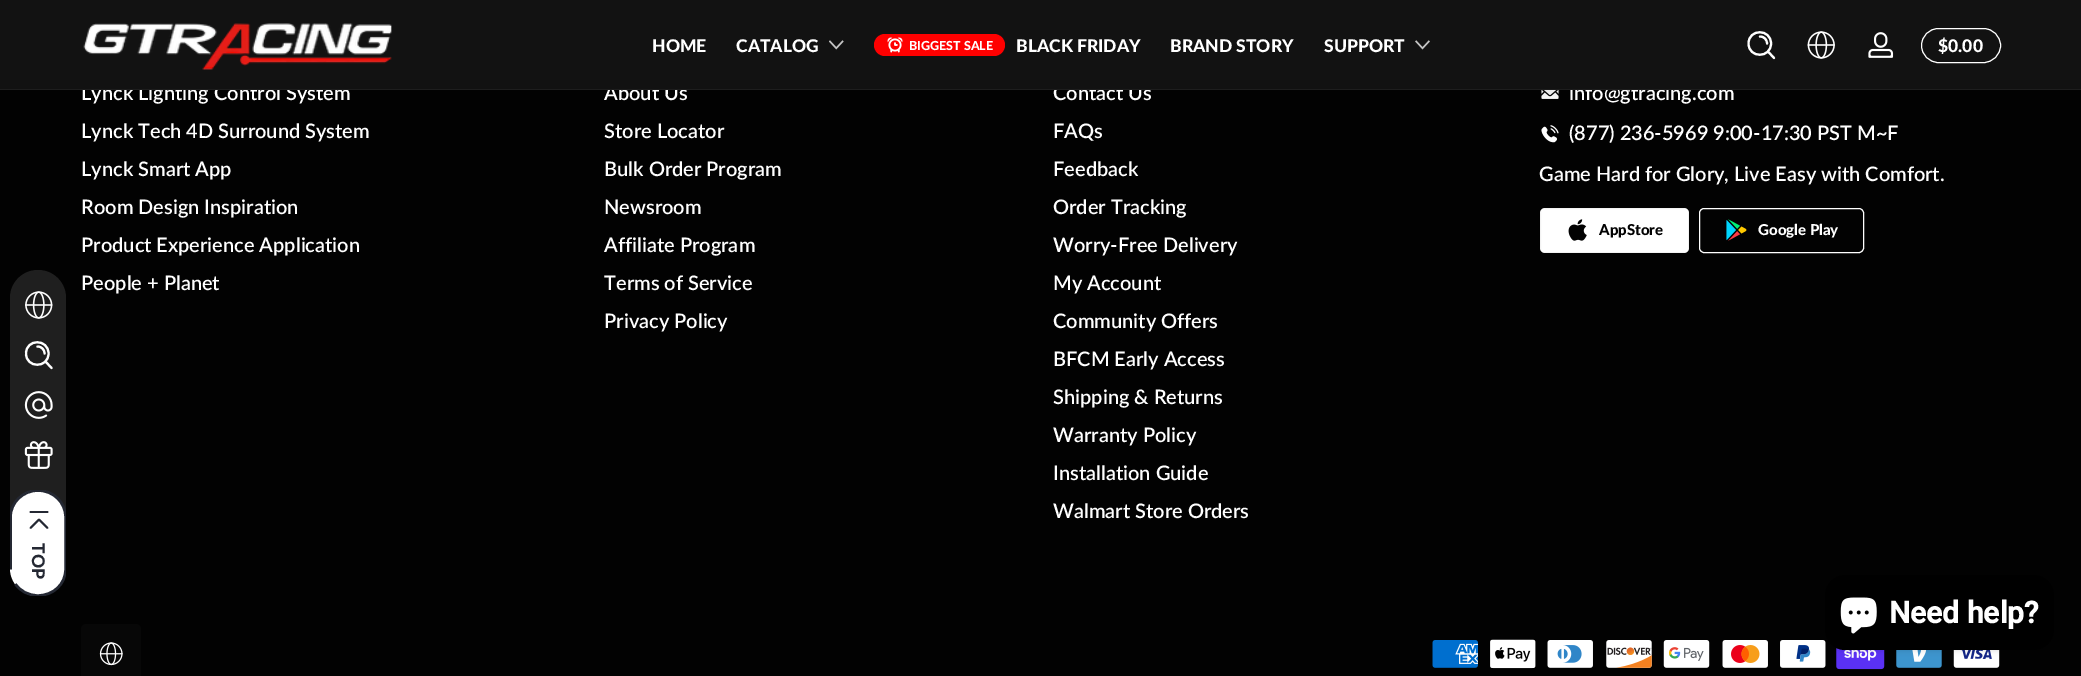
%!PS
<< /PageSize [2081 676] /PageUsesTransparency true >> setpagedevice
/alpha { dup .setfillconstantalpha .setstrokeconstantalpha } def
/roundrect { 5 dict begin { /r /h /w /y /x } { exch def } forall
  x r add y moveto x w add y 2 copy h add r arct x w add y h add x 1 index r arct
  x y h add x y r arct x y 2 copy exch w add exch r arct closepath end } def
/shadow { 12 dict begin { /a /b /q /h /w /y /x } { exch def } forall gsave /was 0 def
  9 -2 -9 { dup b mul 4 div /e exch def 1 sub .425 mul 2.718 exch exp 1 add a .99 .min exch div /now exch def
    1 1 now sub 1 was sub div sub alpha /was now def
    w h .min e 2 mul add 0 gt { x e sub y e sub w e 2 mul add h e 2 mul add
      q e add b .6 mul add w h .min 2 div e add .min 0 .max roundrect fill } if } for grestore end } def
/picture { 5 dict begin { /h /w /y /x /name } { exch def } forall
  gsave x y translate w h scale
  w h 8 [w 0 0 h 0 0] name (r) file false 3 colorimage grestore end } def
0 .pushpdf14devicefilter
0 676 translate 1 -1 scale
4 setmiterlimit
0.008 setgray
0 0 2081 676 rectfill
(img7.rgb) 1541 90 18 9 picture
0 setgray
0 5 2081 90 0 5 0.1 shadow
/Lato-SemiBold [20 0 0 -20 0 0] selectfont
1 setgray
81 100 moveto (Lynck Lighting Control System) show
604 100 moveto (About Us) show
1053 100 moveto (Contact Us) show
1569 100 moveto (info@gtracing.com) show
0.071 setgray
0 0 2081 89 rectfill
(img1.rgb) 83 23 309 47 picture
/Lato-Black [17.5 0 0 -17.5 0 0] selectfont
1 setgray
652 52 moveto (HOME) show
736 52 moveto (CATALOG) show
(img2.rgb) 829 40 15 10 picture
1 0 0 setrgbcolor
874 34 131 22 11 roundrect fill
(img3.rgb) 887 37 16 16 picture
/Lato-Black [12.5 0 0 -12.5 0 0] selectfont
1 setgray
909 50 moveto (BIGGEST SALE) show
/Lato-Black [17.5 0 0 -17.5 0 0] selectfont
1016 52 moveto (BLACK FRIDAY) show
1170 52 moveto (BRAND STORY) show
1324 52 moveto (SUPPORT) show
(img4.rgb) 1415 40 15 10 picture
2.1 setlinewidth
1 setlinecap
1 setlinejoin
newpath 1760 36.5 moveto 1764 36.5 1767 39.5 1767 43.5 curveto 1768 51.5 moveto 1774 58 lineto 1771 43.5 moveto 1771 58.5 1748.5 58.5 1748.5 43.5 curveto 1748.5 28.5 1771 28.5 1771 43.5 curveto closepath stroke
(img5.rgb) 1807 31 28 28 picture
(img6.rgb) 1868 32 26 26 picture
1 setlinewidth
0 setlinecap
0 setlinejoin
1921.5 28.5 79 34 17 roundrect stroke
1938 52 moveto ($0.00) show
0.118 setgray
0 89 2081 1 rectfill
/Lato-SemiBold [20 0 0 -20 0 0] selectfont
1 setgray
81 138 moveto (Lynck Tech 4D Surround System) show
81 176 moveto (Lynck Smart App) show
81 214 moveto (Room Design Inspiration) show
81 252 moveto (Product Experience Application) show
81 290 moveto (People + Planet) show
604 138 moveto (Store Locator) show
604 176 moveto (Bulk Order Program) show
604 214 moveto (Newsroom) show
604 252 moveto (Affiliate Program) show
604 290 moveto (Terms of Service) show
604 328 moveto (Privacy Policy) show
1053 138 moveto (FAQs) show
1053 176 moveto (Feedback) show
1053 214 moveto (Order Tracking) show
1053 252 moveto (Worry-Free Delivery) show
1053 290 moveto (My Account) show
1053 328 moveto (Community Offers) show
1053 366 moveto (BFCM Early Access) show
1053 404 moveto (Shipping & Returns) show
1053 442 moveto (Warranty Policy) show
1053 480 moveto (Installation Guide) show
1053 518 moveto (Walmart Store Orders) show
(img8.rgb) 1541 125 18 18 picture
1569 140 moveto (\(877\) 236-5969 9:00-17:30 PST M~F) show
1539 181 moveto (Game Hard for Glory, Live Easy with Comfort.) show
1540 208 149 45 5 roundrect fill
(img9.rgb) 1568 219 19 22 picture
0.05 alpha
0.008 setgray
1540.5 208.5 148 44 rectstroke
/Lato-Black [15 0 0 -15 0 0] selectfont
1 alpha
1599 235 moveto (AppStore) show
(img10.rgb) 1726 219 21 22 picture
1 setgray
1699.5 208.5 164 44 4.5 roundrect stroke
1758 235 moveto (Google Play) show
0.027 setgray
81 624 60 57 5 roundrect fill
(img11.rgb) 99 642 24 24 picture
(img12.rgb) 1432 640 46 28 picture
(img13.rgb) 1490 639 46 30 picture
(img14.rgb) 1547 640 46 28 picture
(img15.rgb) 1606 640 46 28 picture
(img16.rgb) 1663 640 47 28 picture
(img17.rgb) 1722 640 46 28 picture
(img18.rgb) 1780 640 46 28 picture
(img19.rgb) 1836 647 49 23 picture
(img20.rgb) 1896 650 46 18 picture
(img21.rgb) 1953 650 47 18 picture
0.122 setgray
10 270 56 326 28 roundrect fill
(img22.rgb) 25 291 28 28 picture
1 setgray
2.1 setlinewidth
1 setlinecap
1 setlinejoin
newpath 37.5 346.5 moveto 41.5 346.5 44.5 349.5 44.5 353.5 curveto 45.5 361.5 moveto 51.5 368 lineto 48.5 353.5 moveto 48.5 368.5 26 368.5 26 353.5 curveto 26 338.5 48.5 338.5 48.5 353.5 curveto closepath stroke
(img23.rgb) 24 391 29 28 picture
(img24.rgb) 24 441 29 28 picture
10 490 56 106 28 roundrect fill
0.141 0.157 0.2 setrgbcolor
1.8 setlinewidth
newpath 30.5 528 moveto 39 519.5 lineto 47.5 528 lineto 30.5 512 moveto 47.5 512 lineto stroke
gsave
10 490 56 106 rectclip
2.5 setlinewidth
0 setlinecap
0 setlinejoin
newpath 10.5 569.5 moveto 10.5 517 lineto 10.5 502.5 23 490.5 38 490.5 curveto 53.5 490.5 65.5 502.5 65.5 517 curveto 65.5 569.5 lineto 65.5 584 53.5 595.5 38 595.5 curveto 28.5 595.5 20 591 15.5 584 curveto stroke
grestore
/Lato-Black [17.5 0 0 -17.5 0 0] selectfont
gsave 32 543 translate 90 rotate 0 0 moveto (TOP) show grestore
0 setgray
1825 575 229 75 20 3 0.15 shadow
1825 575 229 75 20 roundrect fill
(img25.rgb) 1840 597 37 37 picture
/Roboto-Bold [30 0 0 -30 0 0] selectfont
1 setgray
1889 623 moveto (Need help?) show
.poppdf14devicefilter showpage
